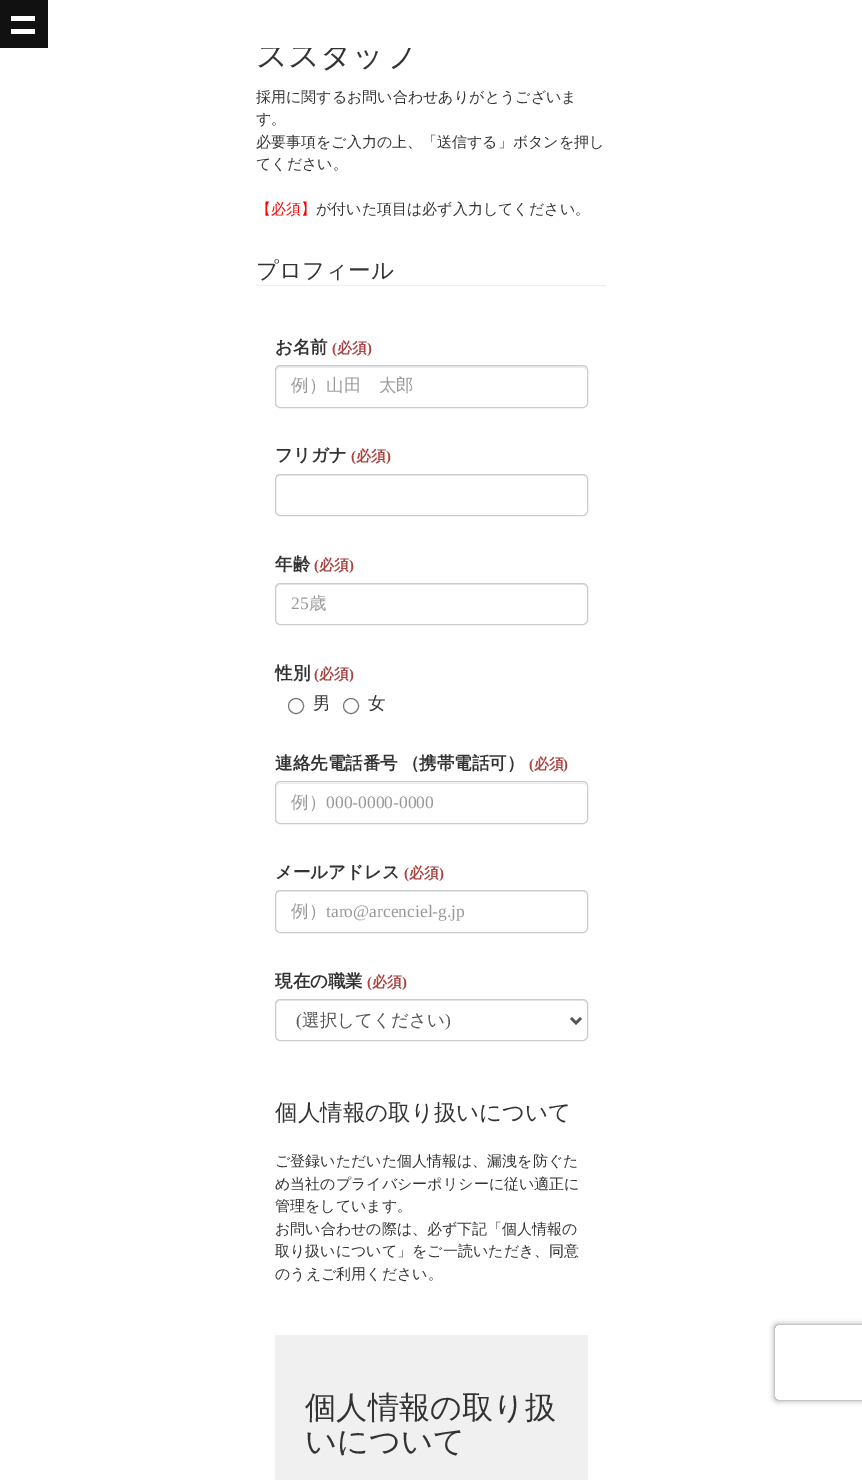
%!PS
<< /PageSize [862 1480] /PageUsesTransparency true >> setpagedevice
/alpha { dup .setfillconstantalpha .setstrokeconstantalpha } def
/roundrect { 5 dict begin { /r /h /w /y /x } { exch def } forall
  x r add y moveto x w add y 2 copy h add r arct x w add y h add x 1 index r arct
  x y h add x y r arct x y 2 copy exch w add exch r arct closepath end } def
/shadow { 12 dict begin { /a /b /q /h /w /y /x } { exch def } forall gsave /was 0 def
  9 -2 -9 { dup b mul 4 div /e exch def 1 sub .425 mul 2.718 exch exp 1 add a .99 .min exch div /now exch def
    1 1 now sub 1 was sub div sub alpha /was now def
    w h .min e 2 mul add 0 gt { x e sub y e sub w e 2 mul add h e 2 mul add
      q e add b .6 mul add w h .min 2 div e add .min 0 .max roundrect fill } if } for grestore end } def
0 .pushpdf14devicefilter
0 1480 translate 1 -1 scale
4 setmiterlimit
1 setgray
0 0 862 1480 rectfill
/WenQuanYiZenHei-Medium [31.25 0 0 -31.25 0 0] selectfont
0.2 setgray
256 66 moveto (ススタッフ) show
1 setgray
261 42 151 6 rectfill
0.067 setgray
0 0 48 48 rectfill
1 setgray
11 16 24 5 rectfill
11 29 24 5 rectfill
/WenQuanYiZenHei-Medium [15 0 0 -15 0 0] selectfont
0.2 setgray
256 102 moveto (採用に関するお問い合わせありがとうございま) show
256 124 moveto (す。) show
256 147 moveto (必要事項をご入力の上、「送信する」ボタンを押し) show
256 169 moveto (てください。) show
1 0 0 setrgbcolor
256 214 moveto (【必須】) show
0.2 setgray
316 214 moveto (が付いた項目は必ず入力してください。) show
0.933 setgray
256 285 350 1 rectfill
/WenQuanYiZenHei-Medium [22.5 0 0 -22.5 0 0] selectfont
0.2 setgray
256 278 moveto (プロフィール) show
/WenQuanYiZenHei-Bold [17.5 0 0 -17.5 0 0] selectfont
275 353 moveto (お名前) show
/LiberationSerif-Bold [15 0 0 -15 0 0] selectfont
0.663 0.267 0.259 setrgbcolor
332 353 moveto (\() show
/WenQuanYiZenHei-Bold [15 0 0 -15 0 0] selectfont
337 353 moveto (必須) show
/LiberationSerif-Bold [15 0 0 -15 0 0] selectfont
367 353 moveto (\)) show
0.925 setgray
newpath 280 368 moveto 582 368 lineto 585 368 586 369 586 371 curveto 586 368 585 366 582 366 curveto 280 366 lineto 277 367 lineto 276 368 276 370 276 371 curveto 276 369 278 368 280 368 curveto closepath fill
0.8 setgray
275.5 365.5 312 42 4.5 roundrect stroke
/WenQuanYiZenHei-Medium [17.5 0 0 -17.5 0 0] selectfont
0.6 setgray
291 391 moveto (例）山田　太郎) show
/WenQuanYiZenHei-Bold [17.5 0 0 -17.5 0 0] selectfont
0.2 setgray
275 461 moveto (フリガナ) show
/LiberationSerif-Bold [15 0 0 -15 0 0] selectfont
0.663 0.267 0.259 setrgbcolor
351 461 moveto (\() show
/WenQuanYiZenHei-Bold [15 0 0 -15 0 0] selectfont
356 461 moveto (必須) show
/LiberationSerif-Bold [15 0 0 -15 0 0] selectfont
386 461 moveto (\)) show
0.925 setgray
newpath 280 476 moveto 582 476 lineto 585 476 586 478 586 480 curveto 586 477 585 475 582 475 curveto 280 475 lineto 277 476 lineto 276 477 276 479 276 480 curveto 276 478 278 476 280 476 curveto closepath fill
0.8 setgray
275.5 474.5 312 41 4.5 roundrect stroke
/WenQuanYiZenHei-Bold [17.5 0 0 -17.5 0 0] selectfont
0.2 setgray
275 570 moveto (年齢) show
/LiberationSerif-Bold [15 0 0 -15 0 0] selectfont
0.663 0.267 0.259 setrgbcolor
314 570 moveto (\() show
/WenQuanYiZenHei-Bold [15 0 0 -15 0 0] selectfont
319 570 moveto (必須) show
/LiberationSerif-Bold [15 0 0 -15 0 0] selectfont
349 570 moveto (\)) show
0.925 setgray
newpath 280 585 moveto 582 585 lineto 585 585 586 587 586 589 curveto 586 586 585 584 582 584 curveto 280 584 lineto 277 585 lineto 276 586 276 588 276 589 curveto 276 587 278 585 280 585 curveto closepath fill
0.8 setgray
275.5 583.5 312 41 4.5 roundrect stroke
/LiberationSerif-Regular [17.5 0 0 -17.5 0 0] selectfont
0.6 setgray
291 609 moveto (25) show
/WenQuanYiZenHei-Medium [17.5 0 0 -17.5 0 0] selectfont
309 609 moveto (歳) show
/WenQuanYiZenHei-Bold [17.5 0 0 -17.5 0 0] selectfont
0.2 setgray
275 679 moveto (性別) show
/LiberationSerif-Bold [15 0 0 -15 0 0] selectfont
0.663 0.267 0.259 setrgbcolor
314 679 moveto (\() show
/WenQuanYiZenHei-Bold [15 0 0 -15 0 0] selectfont
319 679 moveto (必須) show
/LiberationSerif-Bold [15 0 0 -15 0 0] selectfont
349 679 moveto (\)) show
0.463 setgray
newpath 296 706 7.5 0 360 arc closepath stroke
/WenQuanYiZenHei-Medium [17.5 0 0 -17.5 0 0] selectfont
0.2 setgray
313 709 moveto (男) show
0.463 setgray
newpath 351 706 7.5 0 360 arc closepath stroke
0.2 setgray
368 709 moveto (女) show
/WenQuanYiZenHei-Bold [17.5 0 0 -17.5 0 0] selectfont
275 769 moveto -1 0 32 (連絡先電話番号 （携帯電話可）) widthshow
/LiberationSerif-Bold [15 0 0 -15 0 0] selectfont
0.663 0.267 0.259 setrgbcolor
529 769 moveto (\() show
/WenQuanYiZenHei-Bold [15 0 0 -15 0 0] selectfont
534 769 moveto (必須) show
/LiberationSerif-Bold [15 0 0 -15 0 0] selectfont
563 769 moveto (\)) show
0.925 setgray
newpath 280 784 moveto 582 784 lineto 585 784 586 785 586 788 curveto 586 785 585 783 582 783 curveto 280 783 lineto 277 784 lineto 276 785 276 787 276 788 curveto 276 785 278 784 280 784 curveto closepath fill
0.8 setgray
275.5 781.5 312 42 4.5 roundrect stroke
/WenQuanYiZenHei-Medium [17.5 0 0 -17.5 0 0] selectfont
0.6 setgray
291 808 moveto (例）) show
/LiberationSerif-Regular [17.5 0 0 -17.5 0 0] selectfont
326 808 moveto (000-0000-0000) show
/WenQuanYiZenHei-Bold [17.5 0 0 -17.5 0 0] selectfont
0.2 setgray
275 878 moveto (メールアドレス) show
/LiberationSerif-Bold [15 0 0 -15 0 0] selectfont
0.663 0.267 0.259 setrgbcolor
404 878 moveto (\() show
/WenQuanYiZenHei-Bold [15 0 0 -15 0 0] selectfont
409 878 moveto (必須) show
/LiberationSerif-Bold [15 0 0 -15 0 0] selectfont
439 878 moveto (\)) show
0.925 setgray
newpath 280 892 moveto 582 892 lineto 585 892 586 894 586 896 curveto 586 893 585 891 582 891 curveto 280 891 lineto 277 892 lineto 276 893 276 895 276 896 curveto 276 894 278 892 280 892 curveto closepath fill
0.8 setgray
275.5 890.5 312 42 4.5 roundrect stroke
/WenQuanYiZenHei-Medium [17.5 0 0 -17.5 0 0] selectfont
0.6 setgray
291 917 moveto (例）) show
/LiberationSerif-Regular [17.5 0 0 -17.5 0 0] selectfont
326 917 moveto (taro@arcenciel-g.jp) show
/WenQuanYiZenHei-Bold [17.5 0 0 -17.5 0 0] selectfont
0.2 setgray
275 987 moveto (現在の職業) show
/LiberationSerif-Bold [15 0 0 -15 0 0] selectfont
0.663 0.267 0.259 setrgbcolor
367 987 moveto (\() show
/WenQuanYiZenHei-Bold [15 0 0 -15 0 0] selectfont
372 987 moveto (必須) show
/LiberationSerif-Bold [15 0 0 -15 0 0] selectfont
402 987 moveto (\)) show
0.925 setgray
newpath 280 1001 moveto 582 1001 lineto 585 1001 586 1003 586 1005 curveto 586 1002 585 1000 582 1000 curveto 280 1000 lineto 277 1001 lineto 276 1002 276 1004 276 1005 curveto 276 1003 278 1001 280 1001 curveto closepath fill
0.8 setgray
275.5 999.5 312 41 4.5 roundrect stroke
0.333 setgray
2.5 setlinewidth
newpath 571 1018 moveto 576 1023 lineto 581 1018 lineto stroke
/LiberationSerif-Regular [17.5 0 0 -17.5 0 0] selectfont
296 1026 moveto (\() show
/WenQuanYiZenHei-Medium [17.5 0 0 -17.5 0 0] selectfont
302 1026 moveto (選択してください) show
/LiberationSerif-Regular [17.5 0 0 -17.5 0 0] selectfont
445 1026 moveto (\)) show
/WenQuanYiZenHei-Medium [22.5 0 0 -22.5 0 0] selectfont
0.2 setgray
275 1120 moveto (個人情報の取り扱いについて) show
/WenQuanYiZenHei-Medium [15 0 0 -15 0 0] selectfont
275 1166 moveto (ご登録いただいた個人情報は、漏洩を防ぐた) show
275 1189 moveto (め当社のプライバシーポリシーに従い適正に) show
275 1211 moveto (管理をしています。) show
275 1234 moveto (お問い合わせの際は、必ず下記「個人情報の) show
275 1256 moveto (取り扱いについて」をご一読いただき、同意) show
275 1279 moveto (のうえご利用ください。) show
0.941 setgray
275 1335 313 145 rectfill
/WenQuanYiZenHei-Medium [31.25 0 0 -31.25 0 0] selectfont
0.2 setgray
305 1418 moveto (個人情報の取り扱) show
305 1452 moveto (いについて) show
gsave
newpath 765 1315 moveto 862 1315 lineto 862 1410 lineto 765 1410 lineto closepath 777.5 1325 moveto 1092.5 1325 lineto 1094 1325 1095 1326 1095 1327.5 curveto 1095 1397.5 lineto 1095 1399 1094 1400 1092.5 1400 curveto 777.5 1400 lineto 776 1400 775 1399 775 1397.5 curveto 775 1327.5 lineto 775 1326 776 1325 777.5 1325 curveto closepath eoclip newpath
0.502 setgray
775 1325 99 75 2.5 3 1 shadow
grestore
.poppdf14devicefilter showpage
